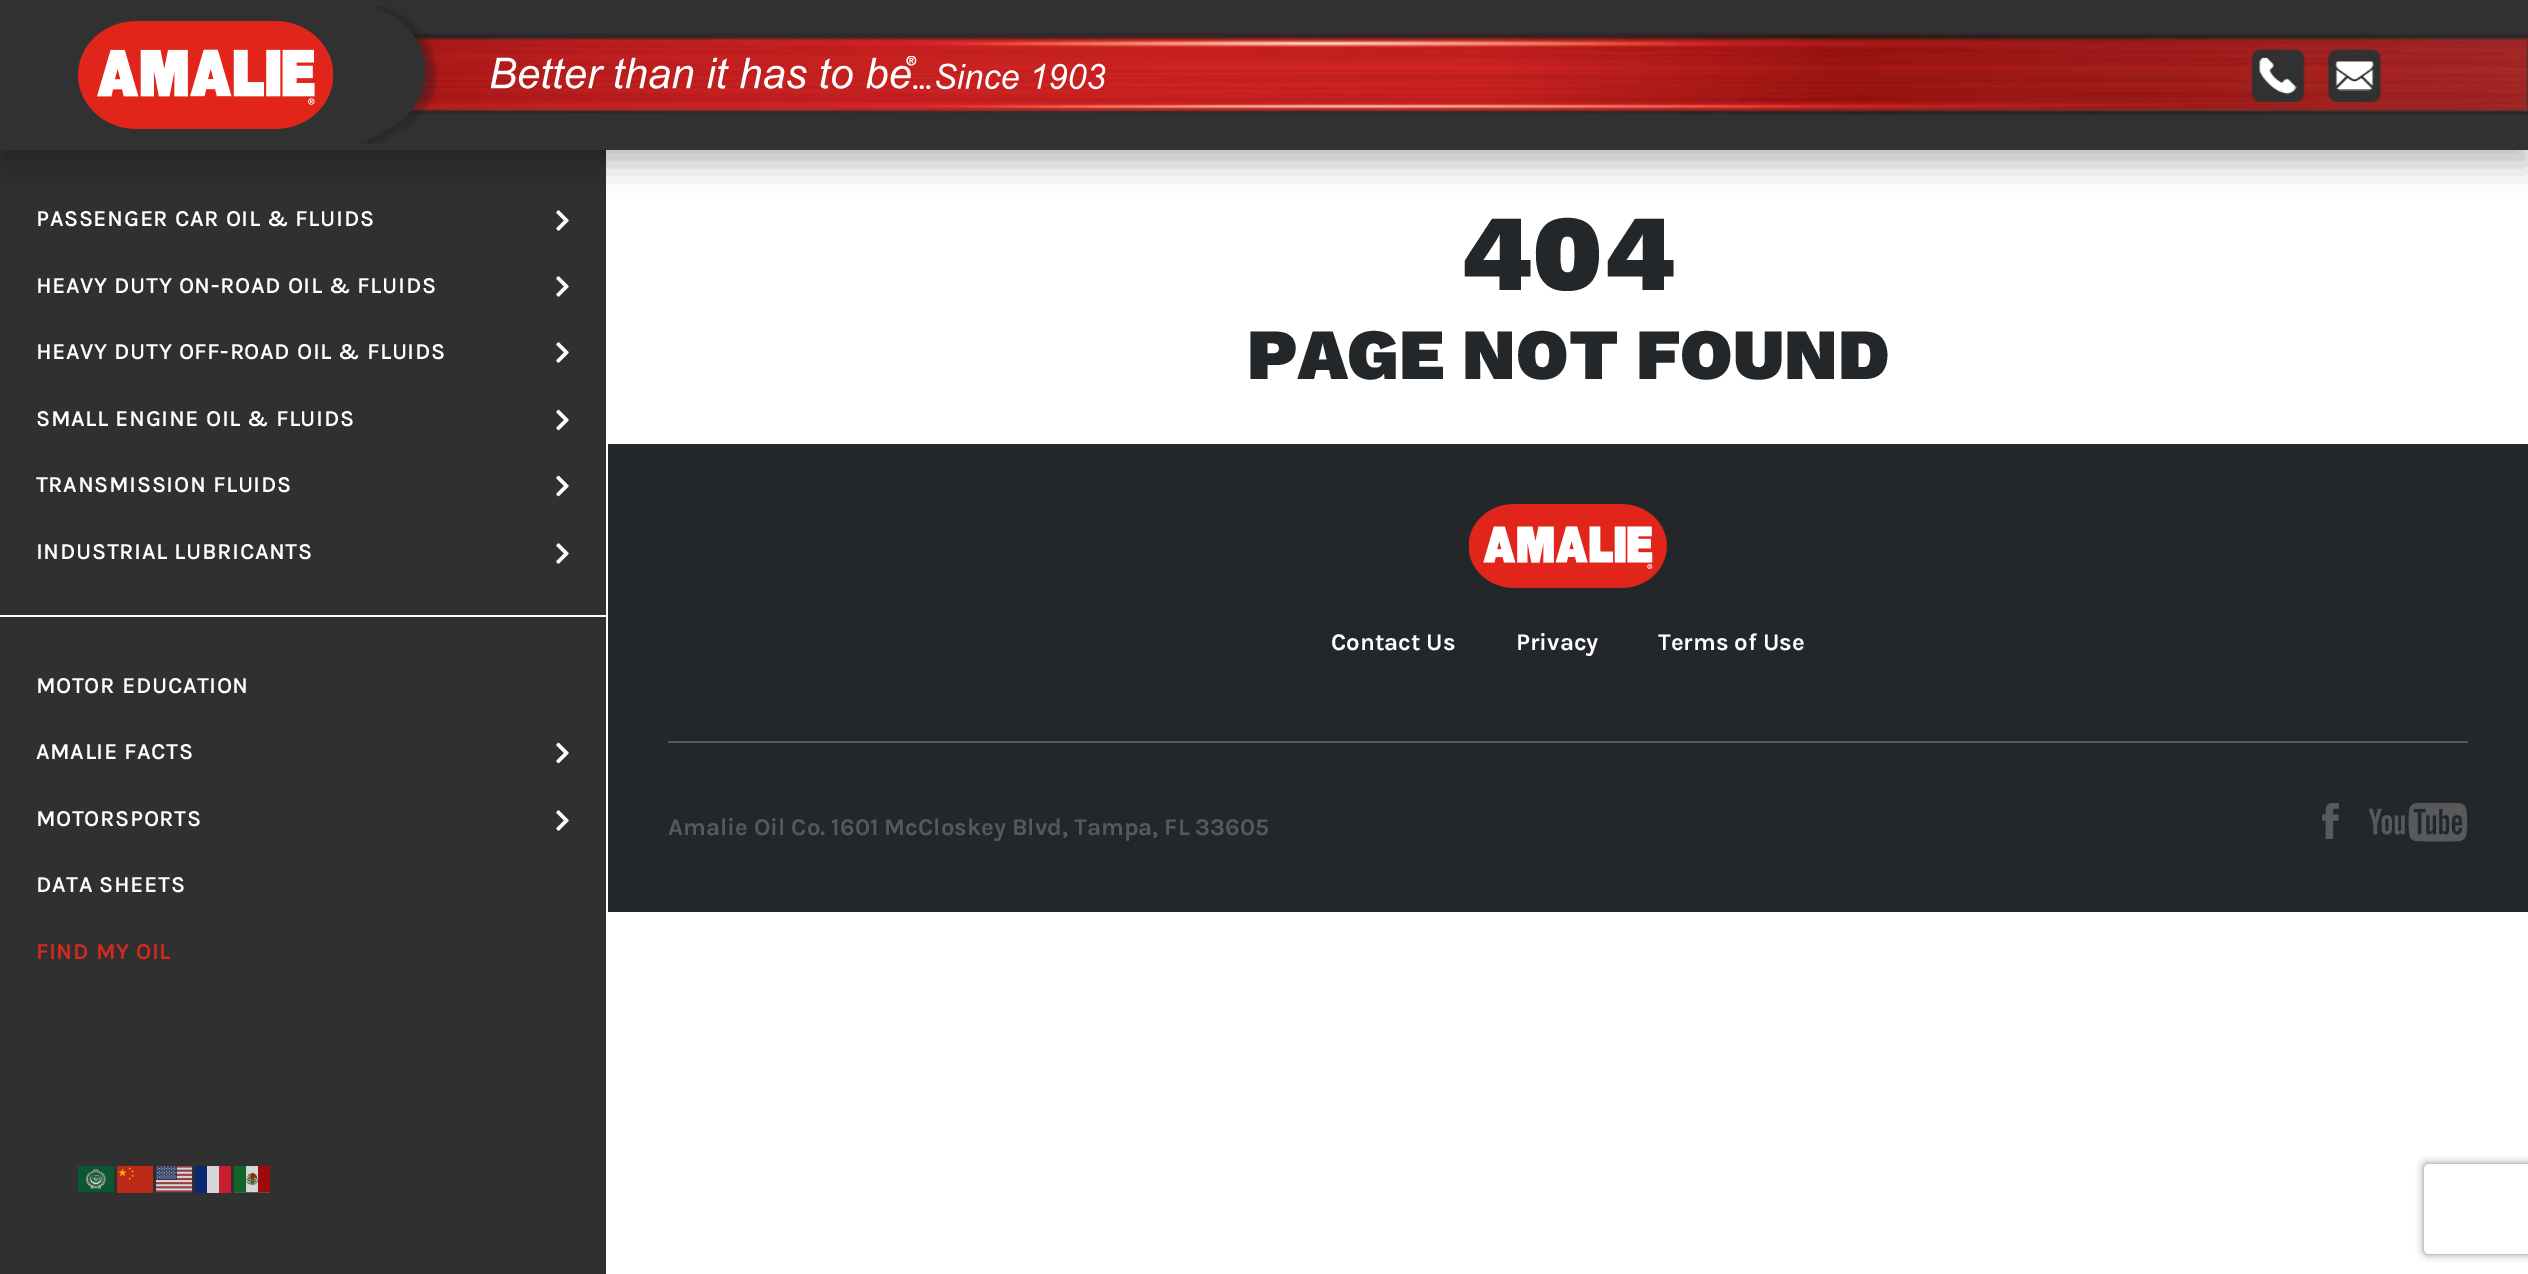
%!PS
<< /PageSize [2528 1274] /PageUsesTransparency true >> setpagedevice
/alpha { dup .setfillconstantalpha .setstrokeconstantalpha } def
/roundrect { 5 dict begin { /r /h /w /y /x } { exch def } forall
  x r add y moveto x w add y 2 copy h add r arct x w add y h add x 1 index r arct
  x y h add x y r arct x y 2 copy exch w add exch r arct closepath end } def
/shadow { 12 dict begin { /a /b /q /h /w /y /x } { exch def } forall gsave /was 0 def
  9 -2 -9 { dup b mul 4 div /e exch def 1 sub .425 mul 2.718 exch exp 1 add a .99 .min exch div /now exch def
    1 1 now sub 1 was sub div sub alpha /was now def
    w h .min e 2 mul add 0 gt { x e sub y e sub w e 2 mul add h e 2 mul add
      q e add b .6 mul add w h .min 2 div e add .min 0 .max roundrect fill } if } for grestore end } def
/picture { 5 dict begin { /h /w /y /x /name } { exch def } forall
  gsave x y translate w h scale
  w h 8 [w 0 0 h 0 0] name (r) file false 3 colorimage grestore end } def
0 .pushpdf14devicefilter
0 1274 translate 1 -1 scale
4 setmiterlimit
1 setgray
0 0 2528 1274 rectfill
0.188 setgray
0 150 606 1124 rectfill
(img7.rgb) 556 210 13 21 picture
0 setgray
0 15 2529 150 0 15 0.25 shadow
0.188 0.192 0.188 setrgbcolor
0 0 2528 150 rectfill
(img1.rgb) 403 32 2125 86 picture
(img2.rgb) 107 6 332 138 picture
(img3.rgb) 78 21 255 108 picture
(img4.rgb) 491 56 615 34 picture
(img5.rgb) 2251 49 54 53 picture
(img6.rgb) 2327 49 54 53 picture
/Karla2-Bold [22.5 0 0 -22.5 0 0] selectfont
1 setgray
36 226 moveto 1.2 0 (PASSENGER CAR OIL & FLUIDS) ashow
36 293 moveto 1.2 0 (HEAVY DUTY ON-ROAD OIL & FLUIDS) ashow
(img7.rgb) 556 276 13 21 picture
36 359 moveto 1.2 0 (HEAVY DUTY OFF-ROAD OIL & FLUIDS) ashow
(img7.rgb) 556 342 13 21 picture
36 426 moveto 1.2 0 (SMALL ENGINE OIL & FLUIDS) ashow
(img8.rgb) 556 409 13 22 picture
36 492 moveto 1.2 0 (TRANSMISSION FLUIDS) ashow
(img8.rgb) 556 475 13 22 picture
36 559 moveto 1.2 0 (INDUSTRIAL LUBRICANTS) ashow
(img7.rgb) 556 543 13 21 picture
0 615 606 2 rectfill
36 693 moveto 1.2 0 (MOTOR EDUCATION) ashow
36 759 moveto 1.2 0 (AMALIE FACTS) ashow
(img8.rgb) 556 742 13 22 picture
36 826 moveto 1.2 0 (MOTORSPORTS) ashow
(img7.rgb) 556 810 13 21 picture
36 892 moveto 1.2 0 (DATA SHEETS) ashow
0.855 0.161 0.11 setrgbcolor
36 959 moveto 1.2 0 (FIND MY OIL) ashow
/WorkSans-Black [108 0 0 -108 0 0] selectfont
0.141 0.153 0.165 setrgbcolor
1460 290 moveto (404) show
/WorkSans-Black [72 0 0 -72 0 0] selectfont
1247 379 moveto (PAGE NOT FOUND) show
608 444 1920 468 rectfill
(img9.rgb) 1469 504 198 84 picture
/Karla-Bold [24 0 0 -24 0 0] selectfont
1 setgray
1331 650 moveto (Contact Us) show
1516 650 moveto (Privacy) show
1658 650 moveto (Terms of Use) show
0.337 0.349 0.357 setrgbcolor
668 741 1800 2 rectfill
668 835 moveto (Amalie Oil Co. 1601 McCloskey Blvd, Tampa, FL 33605) show
(img10.rgb) 2322 803 17 36 picture
(img11.rgb) 2369 803 99 39 picture
(img12.rgb) 78 1166 36 27 picture
(img13.rgb) 117 1166 36 27 picture
(img14.rgb) 156 1166 36 27 picture
0.039 0.157 0.435 setrgbcolor
195 1166 12 27 rectfill
0.839 setgray
207 1166 12 27 rectfill
0.8 0.114 0.188 setrgbcolor
219 1166 12 27 rectfill
(img15.rgb) 234 1166 36 27 picture
gsave
newpath 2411 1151 moveto 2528 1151 lineto 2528 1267 lineto 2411 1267 lineto closepath 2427 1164 moveto 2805 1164 lineto 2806.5 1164 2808 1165.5 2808 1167 curveto 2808 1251 lineto 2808 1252.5 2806.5 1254 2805 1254 curveto 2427 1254 lineto 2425.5 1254 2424 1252.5 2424 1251 curveto 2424 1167 lineto 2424 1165.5 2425.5 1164 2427 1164 curveto closepath eoclip newpath
0.502 setgray
2424 1164 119 90 3 4 1 shadow
grestore
.poppdf14devicefilter showpage
